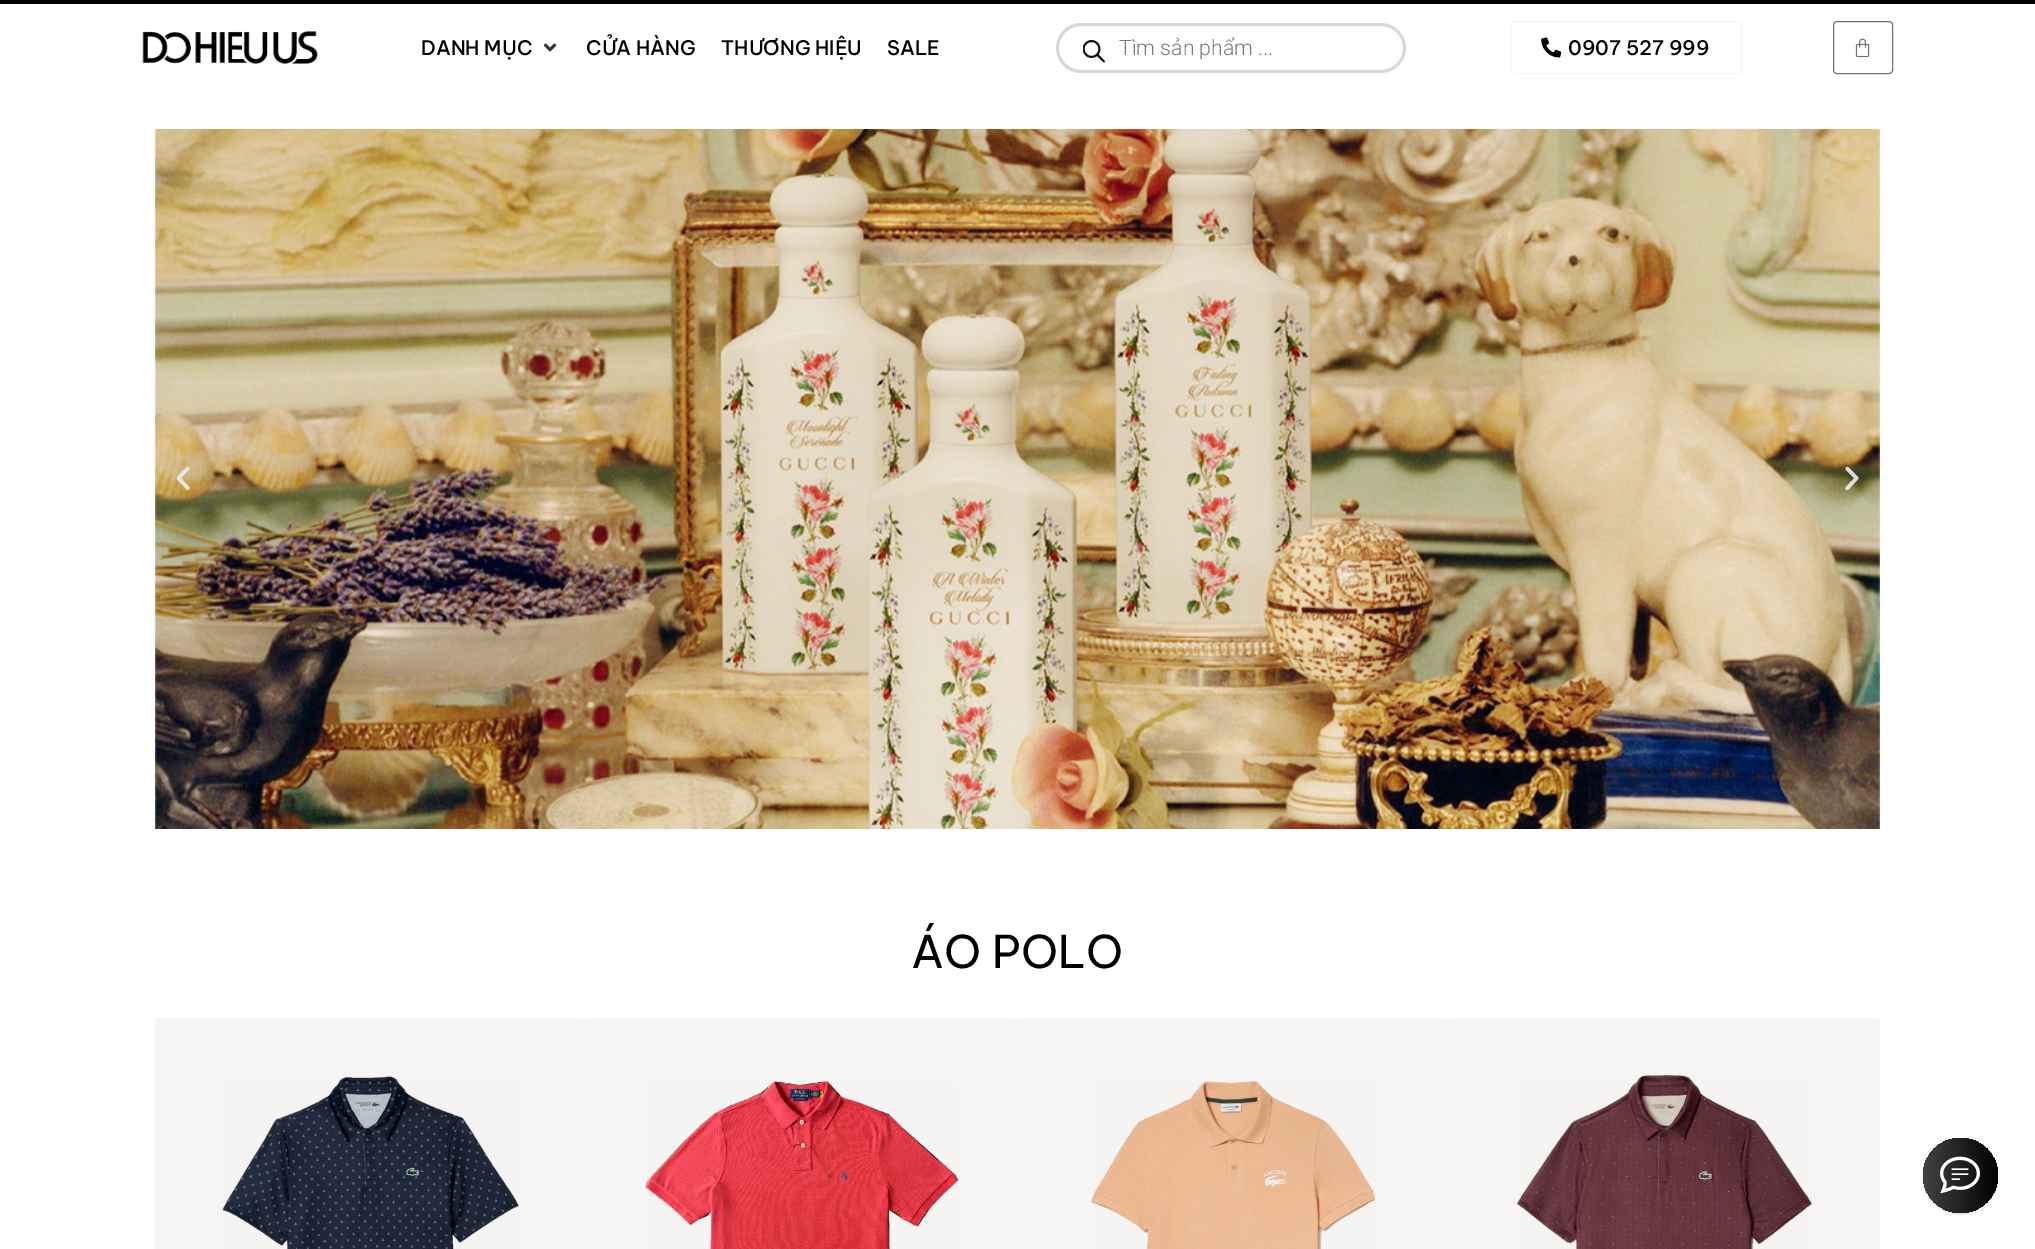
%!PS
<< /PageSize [2035 1249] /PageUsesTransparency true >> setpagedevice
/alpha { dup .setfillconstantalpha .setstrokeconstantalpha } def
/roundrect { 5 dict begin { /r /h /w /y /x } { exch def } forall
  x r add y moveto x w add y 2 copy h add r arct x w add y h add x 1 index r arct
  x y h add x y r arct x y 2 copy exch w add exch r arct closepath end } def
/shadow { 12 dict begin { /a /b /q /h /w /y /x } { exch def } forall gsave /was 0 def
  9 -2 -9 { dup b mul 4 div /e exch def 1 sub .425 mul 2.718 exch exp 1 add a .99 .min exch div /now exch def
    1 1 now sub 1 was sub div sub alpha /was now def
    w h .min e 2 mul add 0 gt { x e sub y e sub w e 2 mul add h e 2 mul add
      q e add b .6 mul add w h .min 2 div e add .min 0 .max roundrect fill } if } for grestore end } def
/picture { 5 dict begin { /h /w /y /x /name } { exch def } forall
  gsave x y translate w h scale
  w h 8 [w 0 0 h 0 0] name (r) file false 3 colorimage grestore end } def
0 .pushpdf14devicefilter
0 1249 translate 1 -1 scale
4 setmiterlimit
1 setgray
0 0 2035 1249 rectfill
0 setgray
0 0 2035 4 rectfill
(img1.rgb) 142 31 176 33 picture
/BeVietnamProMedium-Medium [20 0 0 -20 0 0] selectfont
421 55 moveto (DANH MỤC) show
(img2.rgb) 543 43 14 9 picture
586 55 moveto (CỬA HÀNG) show
721 55 moveto (THƯƠNG HIỆU) show
887 55 moveto (SALE) show
0.847 setgray
3 setlinewidth
1057.5 24.5 347 47 23.5 roundrect stroke
(img3.rgb) 1083 40 22 23 picture
/Roboto-Light [21.25 0 0 -21.25 0 0] selectfont
0.467 setgray
1119 55 moveto (Tìm sản phẩm ...) show
0.965 0.961 0.953 setrgbcolor
1 setlinewidth
1510.5 21.5 230 52 3.5 roundrect stroke
(img4.rgb) 1541 37 21 21 picture
/BeVietnamProMedium-Medium [20 0 0 -20 0 0] selectfont
0 setgray
1568 55 moveto (0907 527 999) show
0.412 0.447 0.49 setrgbcolor
1833.5 21.5 59 52 3.5 roundrect stroke
(img5.rgb) 1855 38 15 20 picture
(img6.rgb) 155 129 1725 700 picture
(img7.rgb) 176 466 14 25 picture
(img8.rgb) 1845 466 14 25 picture
/BeVietnamPro-Regular [45 0 0 -45 0 0] selectfont
0 setgray
911 968 moveto (ÁO POLO) show
0.965 0.961 0.953 setrgbcolor
155 1018 431 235 4 roundrect fill
(img9.rgb) 222 1076 297 173 picture
586 1018 432 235 4 roundrect fill
(img10.rgb) 645 1081 314 168 picture
1018 1018 431 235 4 roundrect fill
(img11.rgb) 1091 1081 285 168 picture
1449 1018 431 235 4 roundrect fill
(img12.rgb) 1517 1075 295 174 picture
0 setgray
1923 1139 75 75 37.5 1 0.06 shadow
1923 1139 75 75 37.5 2 0.1 shadow
gsave newpath 1960.5 1175.5 37.5 0 360 arc closepath clip newpath
<< /ShadingType 2 /ColorSpace /DeviceRGB /Coords [1923 1175 1998 1175] /Extend [true true] /Function << /FunctionType 2 /Domain [0 1] /C0 [0.263 0.263 0.263] /C1 [0 0 0] /N 1 >> >> shfill grestore
(img13.rgb) 1940 1156 40 38 picture
.poppdf14devicefilter showpage
